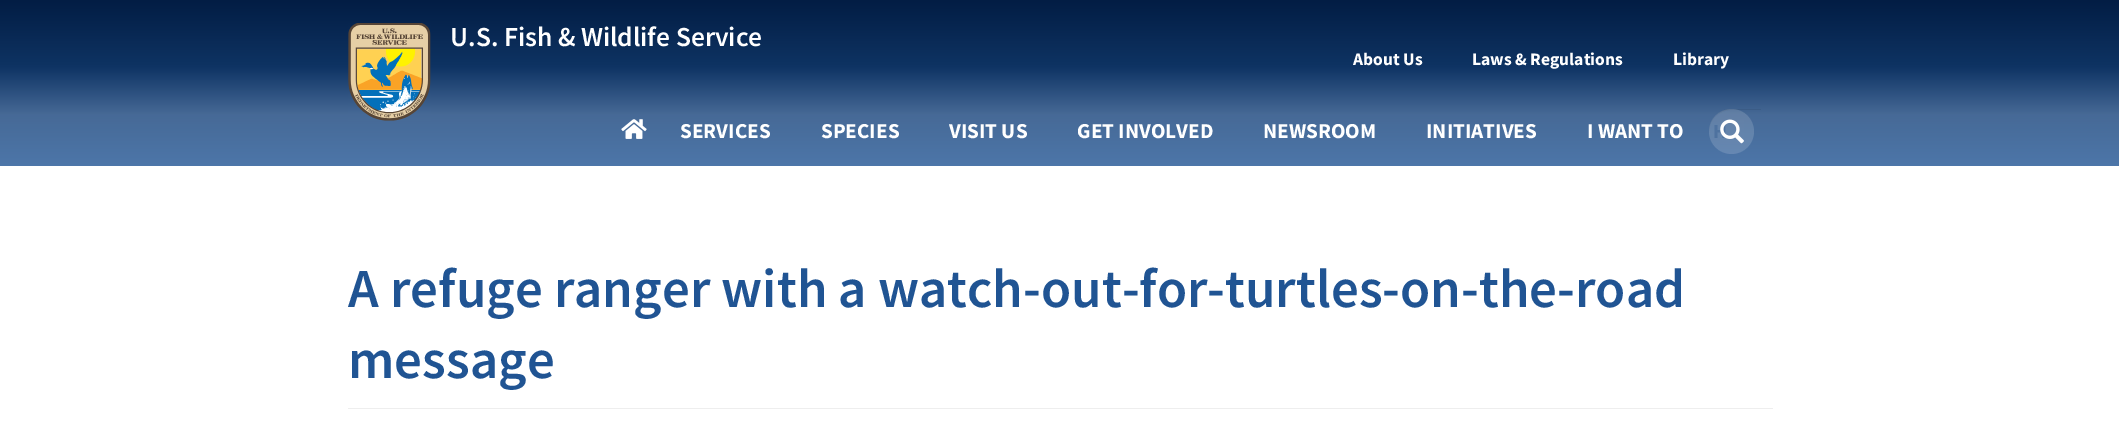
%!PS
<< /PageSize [2119 428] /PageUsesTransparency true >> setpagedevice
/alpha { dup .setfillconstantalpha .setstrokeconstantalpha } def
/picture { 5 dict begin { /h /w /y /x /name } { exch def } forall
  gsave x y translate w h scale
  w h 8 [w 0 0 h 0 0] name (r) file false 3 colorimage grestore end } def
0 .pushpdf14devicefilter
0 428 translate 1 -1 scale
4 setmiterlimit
1 setgray
0 0 2119 428 rectfill
gsave newpath 0 0 moveto 2119 0 lineto 2119 166 lineto 0 166 lineto closepath clip newpath
<< /ShadingType 2 /ColorSpace /DeviceRGB /Coords [1060 0 1060 166] /Extend [true true] /Function << /FunctionType 3 /Domain [0 1] /Functions [<< /FunctionType 2 /Domain [0 1] /C0 [0.008 0.114 0.267] /C1 [0.055 0.2 0.388] /N 1 >> << /FunctionType 2 /Domain [0 1] /C0 [0.055 0.2 0.388] /C1 [0.275 0.412 0.588] /N 1 >> << /FunctionType 2 /Domain [0 1] /C0 [0.275 0.412 0.588] /C1 [0.302 0.463 0.663] /N 1 >>] /Bounds [0.4 0.69] /Encode [0 1 0 1 0 1] >> >> shfill grestore
(img1.rgb) 348 23 83 98 picture
/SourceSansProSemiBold-SemiBold [27.5 0 0 -27.5 0 0] selectfont
450 46 moveto (U.S. Fish & Wildlife Service) show
/SourceSansPro-Bold [17.5 0 0 -17.5 0 0] selectfont
1353 65 moveto (About Us) show
1472 65 moveto (Laws & Regulations) show
1673 65 moveto (Library) show
(img2.rgb) 621 119 26 20 picture
/SourceSansPro-Bold [21.25 0 0 -21.25 0 0] selectfont
680 138 moveto (SERVICES) show
821 138 moveto (SPECIES) show
949 138 moveto (VISIT US) show
1077 138 moveto (GET INVOLVED) show
1263 138 moveto (NEWSROOM) show
1426 138 moveto (INITIATIVES) show
1587 138 moveto (I WANT TO) show
0.07 alpha
0 setgray
newpath 1731 110 moveto 1761 110 lineto 1761 109 lineto 1727 109 lineto 1717 112 1709 121 1709 132 curveto 1709 120 1719 110 1731 110 curveto closepath fill
0.15 alpha
1 setgray
newpath 1731.5 131.5 22.5 0 360 arc closepath fill
/SourceSansPro-Bold [20 0 0 -20 0 0] selectfont
1 alpha
0.306 0.447 0.624 setrgbcolor
1713 138 moveto 1 0 (H) ashow
(img3.rgb) 1720 119 24 25 picture
0.933 setgray
348 408 1425 1 rectfill
/SourceSansProSemiBold-SemiBold [55 0 0 -55 0 0] selectfont
0.125 0.329 0.576 setrgbcolor
348 307 moveto (A refuge ranger with a watch-out-for-turtles-on-the-road) show
348 378 moveto (message) show
.poppdf14devicefilter showpage
